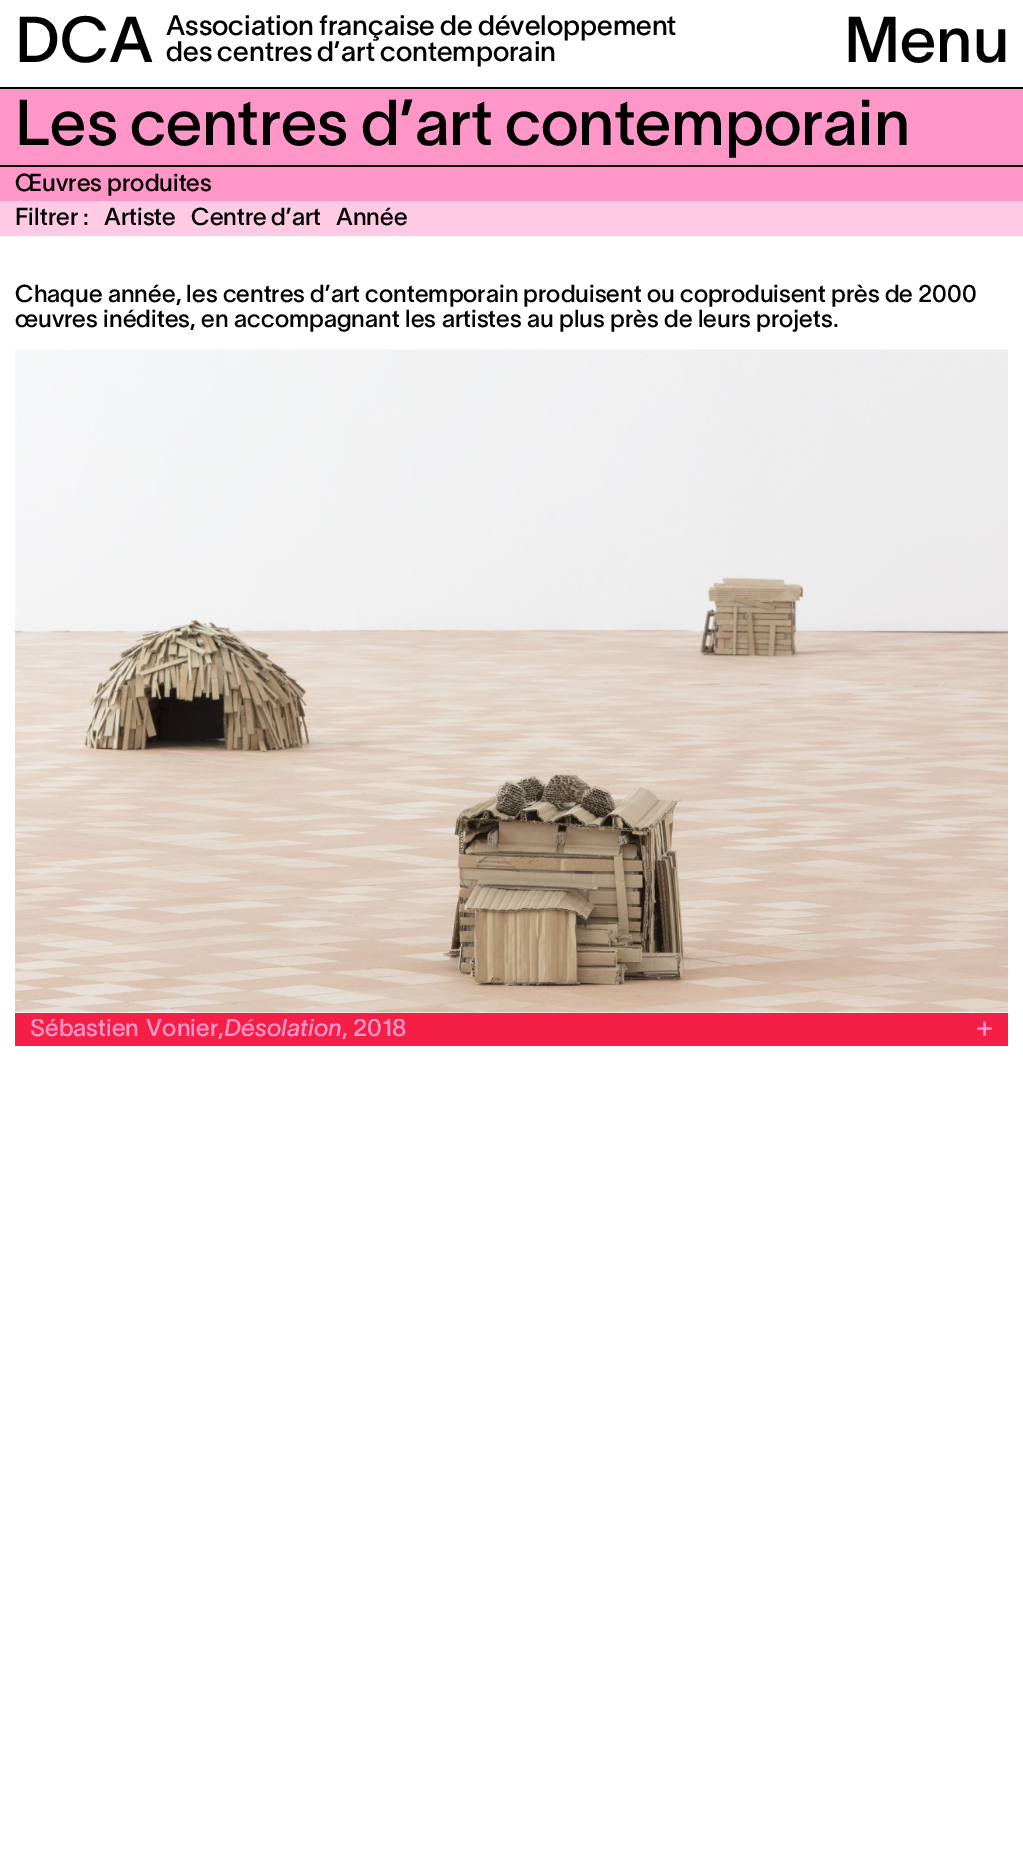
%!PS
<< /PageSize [1023 1868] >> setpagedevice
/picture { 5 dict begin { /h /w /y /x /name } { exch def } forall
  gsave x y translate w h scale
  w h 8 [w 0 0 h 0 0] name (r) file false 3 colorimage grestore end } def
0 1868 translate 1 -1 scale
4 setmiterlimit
1 setgray
0 0 1023 1868 rectfill
/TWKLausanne-Regular [63.5 0 0 -63.5 0 0] selectfont
0 setgray
15 62 moveto (DCA) show
/TWKLausanne-Regular [27.6 0 0 -27.6 0 0] selectfont
166 35 moveto -1 0 32 (Association française de développement) widthshow
166 61 moveto -1 0 32 (des centres d’art contemporain) widthshow
/TWKLausanne-Regular [63.5 0 0 -63.5 0 0] selectfont
844 62 moveto (Menu) show
1 0.588 0.784 setrgbcolor
0 89 1023 76 rectfill
0 setgray
0 87 1023 2 rectfill
0 165 1023 2 rectfill
15 145 moveto -2 0 32 (Les centres d’art contemporain) widthshow
1 0.588 0.784 setrgbcolor
0 167 1023 34 rectfill
/TWKLausanne-Regular [24 0 0 -24 0 0] selectfont
0 setgray
15 191 moveto (Œuvres produites) show
1 0.792 0.89 setrgbcolor
0 201 1023 35 rectfill
0 setgray
15 225 moveto (Filtrer) show
83 225 moveto (:) show
104 225 moveto (Artiste) show
191 225 moveto -1 0 32 (Centre d’art) widthshow
336 225 moveto (Année) show
15 302 moveto -0.25 0 32 (Chaque année, les centres d’art contemporain produisent ou coproduisent près de 2000) widthshow
15 327 moveto (œuvres inédites, en accompagnant les artistes au plus près de leurs projets.) show
(img1.rgb) 15 349 993 664 picture
0.961 0.118 0.275 setrgbcolor
15 1013 993 33 rectfill
gsave
30 1019 377 25 rectclip
1 0.588 0.784 setrgbcolor
30 1036 moveto 2 0 32 (Sébastien Vonier,) widthshow
/TWKLausanne-Italic [24 0 0 -24 0 0] selectfont
224 1036 moveto (Désolation) show
/TWKLausanne-Regular [24 0 0 -24 0 0] selectfont
342 1036 moveto (, 2018) show
grestore
/TWKLausanne-Regular [29 0 0 -29 0 0] selectfont
1 0.588 0.784 setrgbcolor
976 1036 moveto (+) show
showpage
